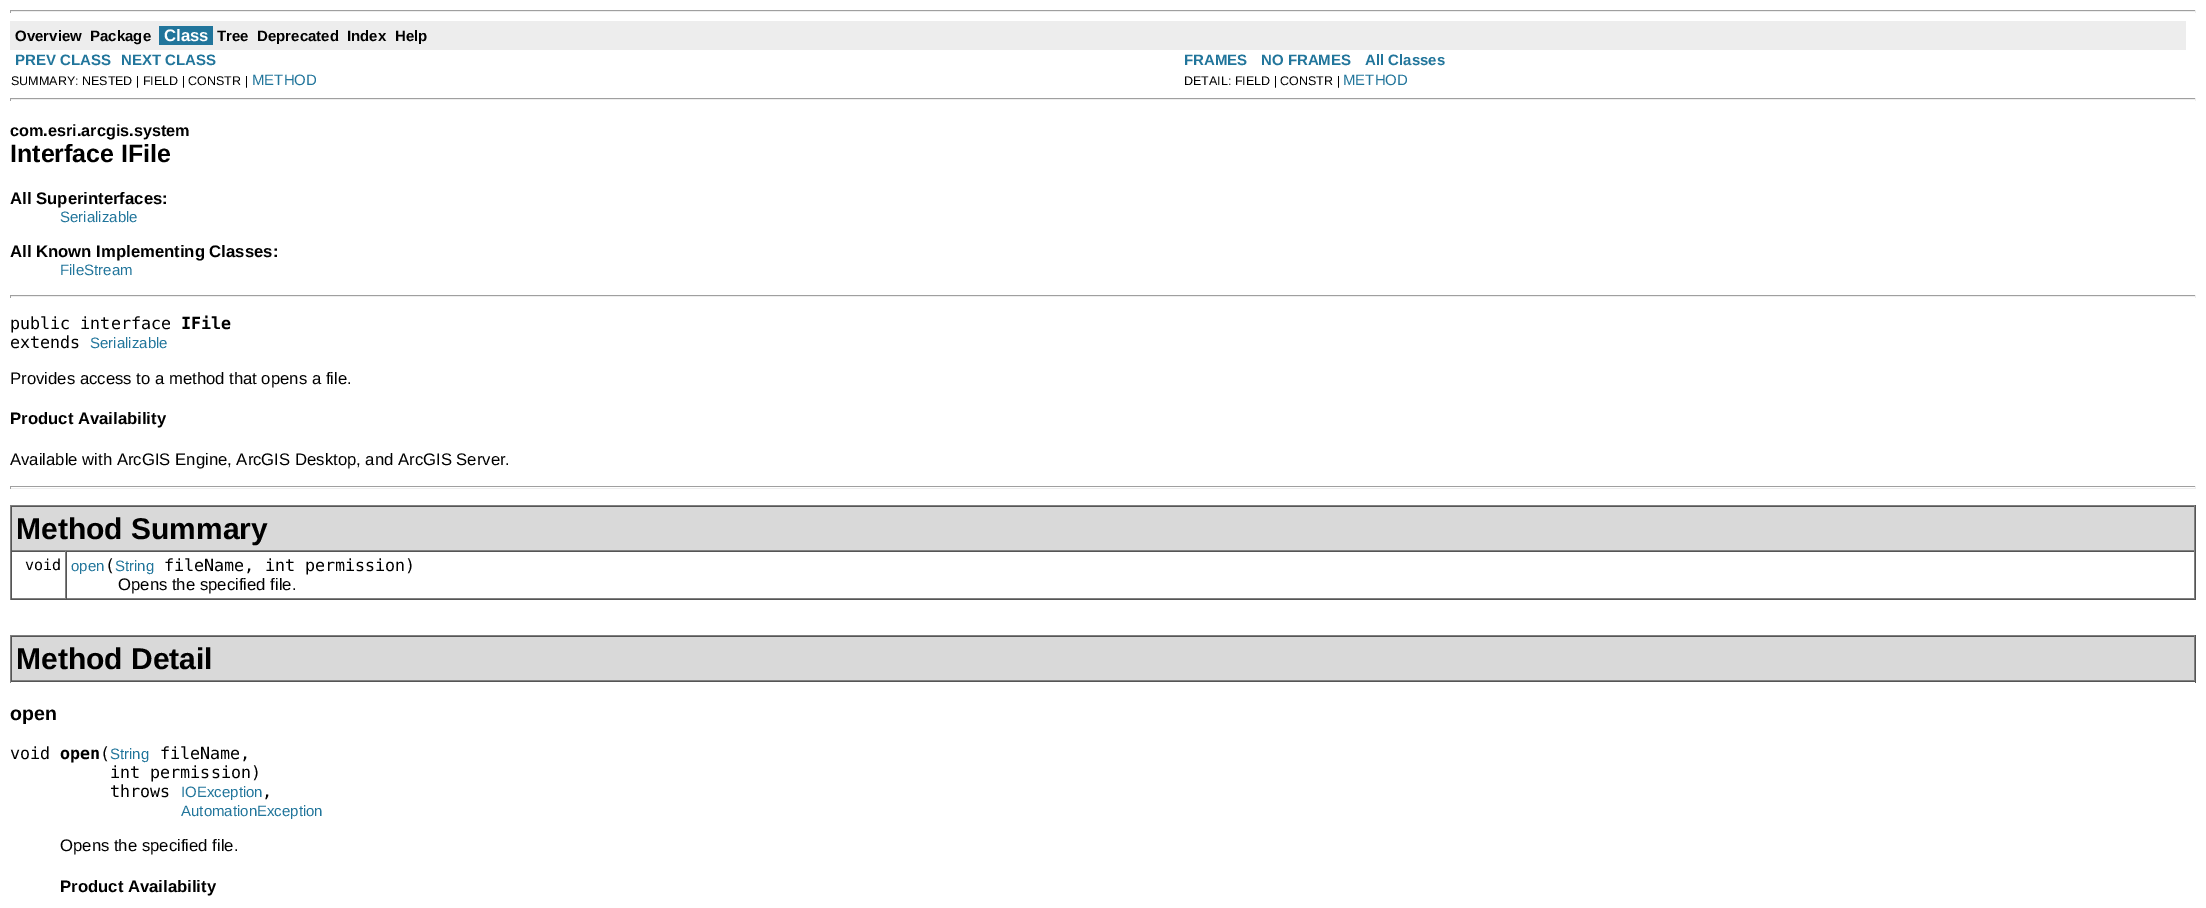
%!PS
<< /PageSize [2206 908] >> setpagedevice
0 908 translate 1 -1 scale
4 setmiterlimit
1 setgray
0 0 2206 908 rectfill
0.624 setgray
10 10 2186 1 rectfill
0.933 setgray
2195 10 1 3 rectfill
10 11 2186 1 rectfill
0.624 setgray
10 10 1 3 rectfill
0.929 setgray
10 21 2176 29 rectfill
/LiberationSans-Bold [15 0 0 -15 0 0] selectfont
0 setgray
15 41 moveto (Overview) show
90 41 moveto (Package) show
0.129 0.459 0.608 setrgbcolor
159 26 54 19 rectfill
/LiberationSans-Bold [16.7 0 0 -16.7 0 0] selectfont
1 setgray
164 41 moveto (Class) show
/LiberationSans-Bold [15 0 0 -15 0 0] selectfont
0 setgray
217 41 moveto (Tree) show
257 41 moveto (Deprecated) show
347 41 moveto (Index) show
395 41 moveto (Help) show
0.129 0.459 0.608 setrgbcolor
15 65 moveto (PREV CLASS) show
121 65 moveto (NEXT CLASS) show
1184 65 moveto (FRAMES) show
1261 65 moveto (NO FRAMES) show
1365 65 moveto (All Classes) show
/LiberationSans-Regular [12.5 0 0 -12.5 0 0] selectfont
0 setgray
11 85 moveto (SUMMARY: NESTED | FIELD | CONSTR |) show
/LiberationSans-Regular [15 0 0 -15 0 0] selectfont
0.129 0.459 0.608 setrgbcolor
252 85 moveto (METHOD) show
/LiberationSans-Regular [12.5 0 0 -12.5 0 0] selectfont
0 setgray
1184 85 moveto (DETAIL: FIELD | CONSTR |) show
/LiberationSans-Regular [15 0 0 -15 0 0] selectfont
0.129 0.459 0.608 setrgbcolor
1343 85 moveto (METHOD) show
0.624 setgray
10 98 2186 1 rectfill
0.933 setgray
2195 98 1 3 rectfill
10 99 2186 1 rectfill
0.624 setgray
10 98 1 3 rectfill
/LiberationSans-Bold [16.25 0 0 -16.25 0 0] selectfont
0 setgray
10 136 moveto (com.esri.arcgis.system) show
/LiberationSans-Bold [25 0 0 -25 0 0] selectfont
10 162 moveto (Interface IFile) show
/LiberationSans-Bold [16.7 0 0 -16.7 0 0] selectfont
10 204 moveto (All Superinterfaces:) show
/LiberationSans-Regular [15 0 0 -15 0 0] selectfont
0.129 0.459 0.608 setrgbcolor
60 222 moveto (Serializable) show
/LiberationSans-Bold [16.7 0 0 -16.7 0 0] selectfont
0 setgray
10 257 moveto (All Known Implementing Classes:) show
/LiberationSans-Regular [15 0 0 -15 0 0] selectfont
0.129 0.459 0.608 setrgbcolor
60 275 moveto (FileStream) show
0.624 setgray
10 295 2186 1 rectfill
0.933 setgray
2195 295 1 3 rectfill
10 296 2186 1 rectfill
0.624 setgray
10 295 1 3 rectfill
/DejaVuSansMono-Regular [16.7 0 0 -16.7 0 0] selectfont
0 setgray
10 329 moveto (public interface) show
/DejaVuSansMono-Bold [16.7 0 0 -16.7 0 0] selectfont
181 329 moveto (IFile) show
/DejaVuSansMono-Regular [16.7 0 0 -16.7 0 0] selectfont
10 348 moveto (extends) show
/LiberationSans-Regular [15 0 0 -15 0 0] selectfont
0.129 0.459 0.608 setrgbcolor
90 348 moveto (Serializable) show
/LiberationSans-Regular [16.7 0 0 -16.7 0 0] selectfont
0 setgray
10 384 moveto (Provides access to a method that opens a file.) show
/LiberationSans-Bold [16.7 0 0 -16.7 0 0] selectfont
10 424 moveto (Product Availability) show
/LiberationSans-Regular [16.7 0 0 -16.7 0 0] selectfont
10 465 moveto (Available with ArcGIS Engine, ArcGIS Desktop, and ArcGIS Server.) show
0.624 setgray
10 486 2186 1 rectfill
0.933 setgray
2195 486 1 3 rectfill
10 488 2186 1 rectfill
0.624 setgray
10 486 1 3 rectfill
0.502 setgray
10 505 2186 1 rectfill
0.333 setgray
2195 505 1 95 rectfill
10 599 2186 1 rectfill
0.502 setgray
10 505 1 95 rectfill
0.851 setgray
12 507 2182 43 rectfill
0.333 setgray
11 506 2184 1 rectfill
0.502 setgray
2194 506 1 45 rectfill
11 550 2184 1 rectfill
0.333 setgray
11 506 1 45 rectfill
/LiberationSans-Bold [30 0 0 -30 0 0] selectfont
0 setgray
16 539 moveto (Method Summary) show
0.333 setgray
11 551 2184 1 rectfill
0.502 setgray
65 551 1 48 rectfill
11 598 55 1 rectfill
0.333 setgray
11 551 1 48 rectfill
/DejaVuSansMono-Regular [15 0 0 -15 0 0] selectfont
0 setgray
25 570 moveto (void) show
0.502 setgray
2194 551 1 48 rectfill
66 598 2129 1 rectfill
0.333 setgray
66 551 1 48 rectfill
/LiberationSans-Regular [15 0 0 -15 0 0] selectfont
0.129 0.459 0.608 setrgbcolor
71 571 moveto (open) show
/DejaVuSansMono-Regular [16.7 0 0 -16.7 0 0] selectfont
0 setgray
105 571 moveto (\() show
/LiberationSans-Regular [15 0 0 -15 0 0] selectfont
0.129 0.459 0.608 setrgbcolor
115 571 moveto (String) show
/DejaVuSansMono-Regular [16.7 0 0 -16.7 0 0] selectfont
0 setgray
164 571 moveto (fileName, int permission\)) show
/LiberationSans-Regular [16.7 0 0 -16.7 0 0] selectfont
118 590 moveto (Opens the specified file.) show
0.502 setgray
10 635 2186 1 rectfill
0.333 setgray
2195 635 1 48 rectfill
10 681 2186 1 rectfill
0.502 setgray
10 635 1 48 rectfill
0.851 setgray
12 637 2182 43 rectfill
0.333 setgray
11 636 2184 1 rectfill
0.502 setgray
2194 636 1 45 rectfill
11 680 2184 1 rectfill
0.333 setgray
11 636 1 45 rectfill
/LiberationSans-Bold [30 0 0 -30 0 0] selectfont
0 setgray
16 669 moveto (Method Detail) show
/LiberationSans-Bold [19.5 0 0 -19.5 0 0] selectfont
10 720 moveto (open) show
/DejaVuSansMono-Regular [16.7 0 0 -16.7 0 0] selectfont
10 759 moveto (void) show
/DejaVuSansMono-Bold [16.7 0 0 -16.7 0 0] selectfont
60 759 moveto (open) show
/DejaVuSansMono-Regular [16.7 0 0 -16.7 0 0] selectfont
100 759 moveto (\() show
/LiberationSans-Regular [15 0 0 -15 0 0] selectfont
0.129 0.459 0.608 setrgbcolor
110 759 moveto (String) show
/DejaVuSansMono-Regular [16.7 0 0 -16.7 0 0] selectfont
0 setgray
160 759 moveto (fileName,) show
110 778 moveto (int permission\)) show
110 797 moveto (throws) show
/LiberationSans-Regular [15 0 0 -15 0 0] selectfont
0.129 0.459 0.608 setrgbcolor
181 797 moveto (IOException) show
/DejaVuSansMono-Regular [16.7 0 0 -16.7 0 0] selectfont
0 setgray
262 797 moveto (,) show
/LiberationSans-Regular [15 0 0 -15 0 0] selectfont
0.129 0.459 0.608 setrgbcolor
181 816 moveto (AutomationException) show
/LiberationSans-Regular [16.7 0 0 -16.7 0 0] selectfont
0 setgray
60 851 moveto (Opens the specified file.) show
/LiberationSans-Bold [16.7 0 0 -16.7 0 0] selectfont
60 892 moveto (Product Availability) show
showpage
